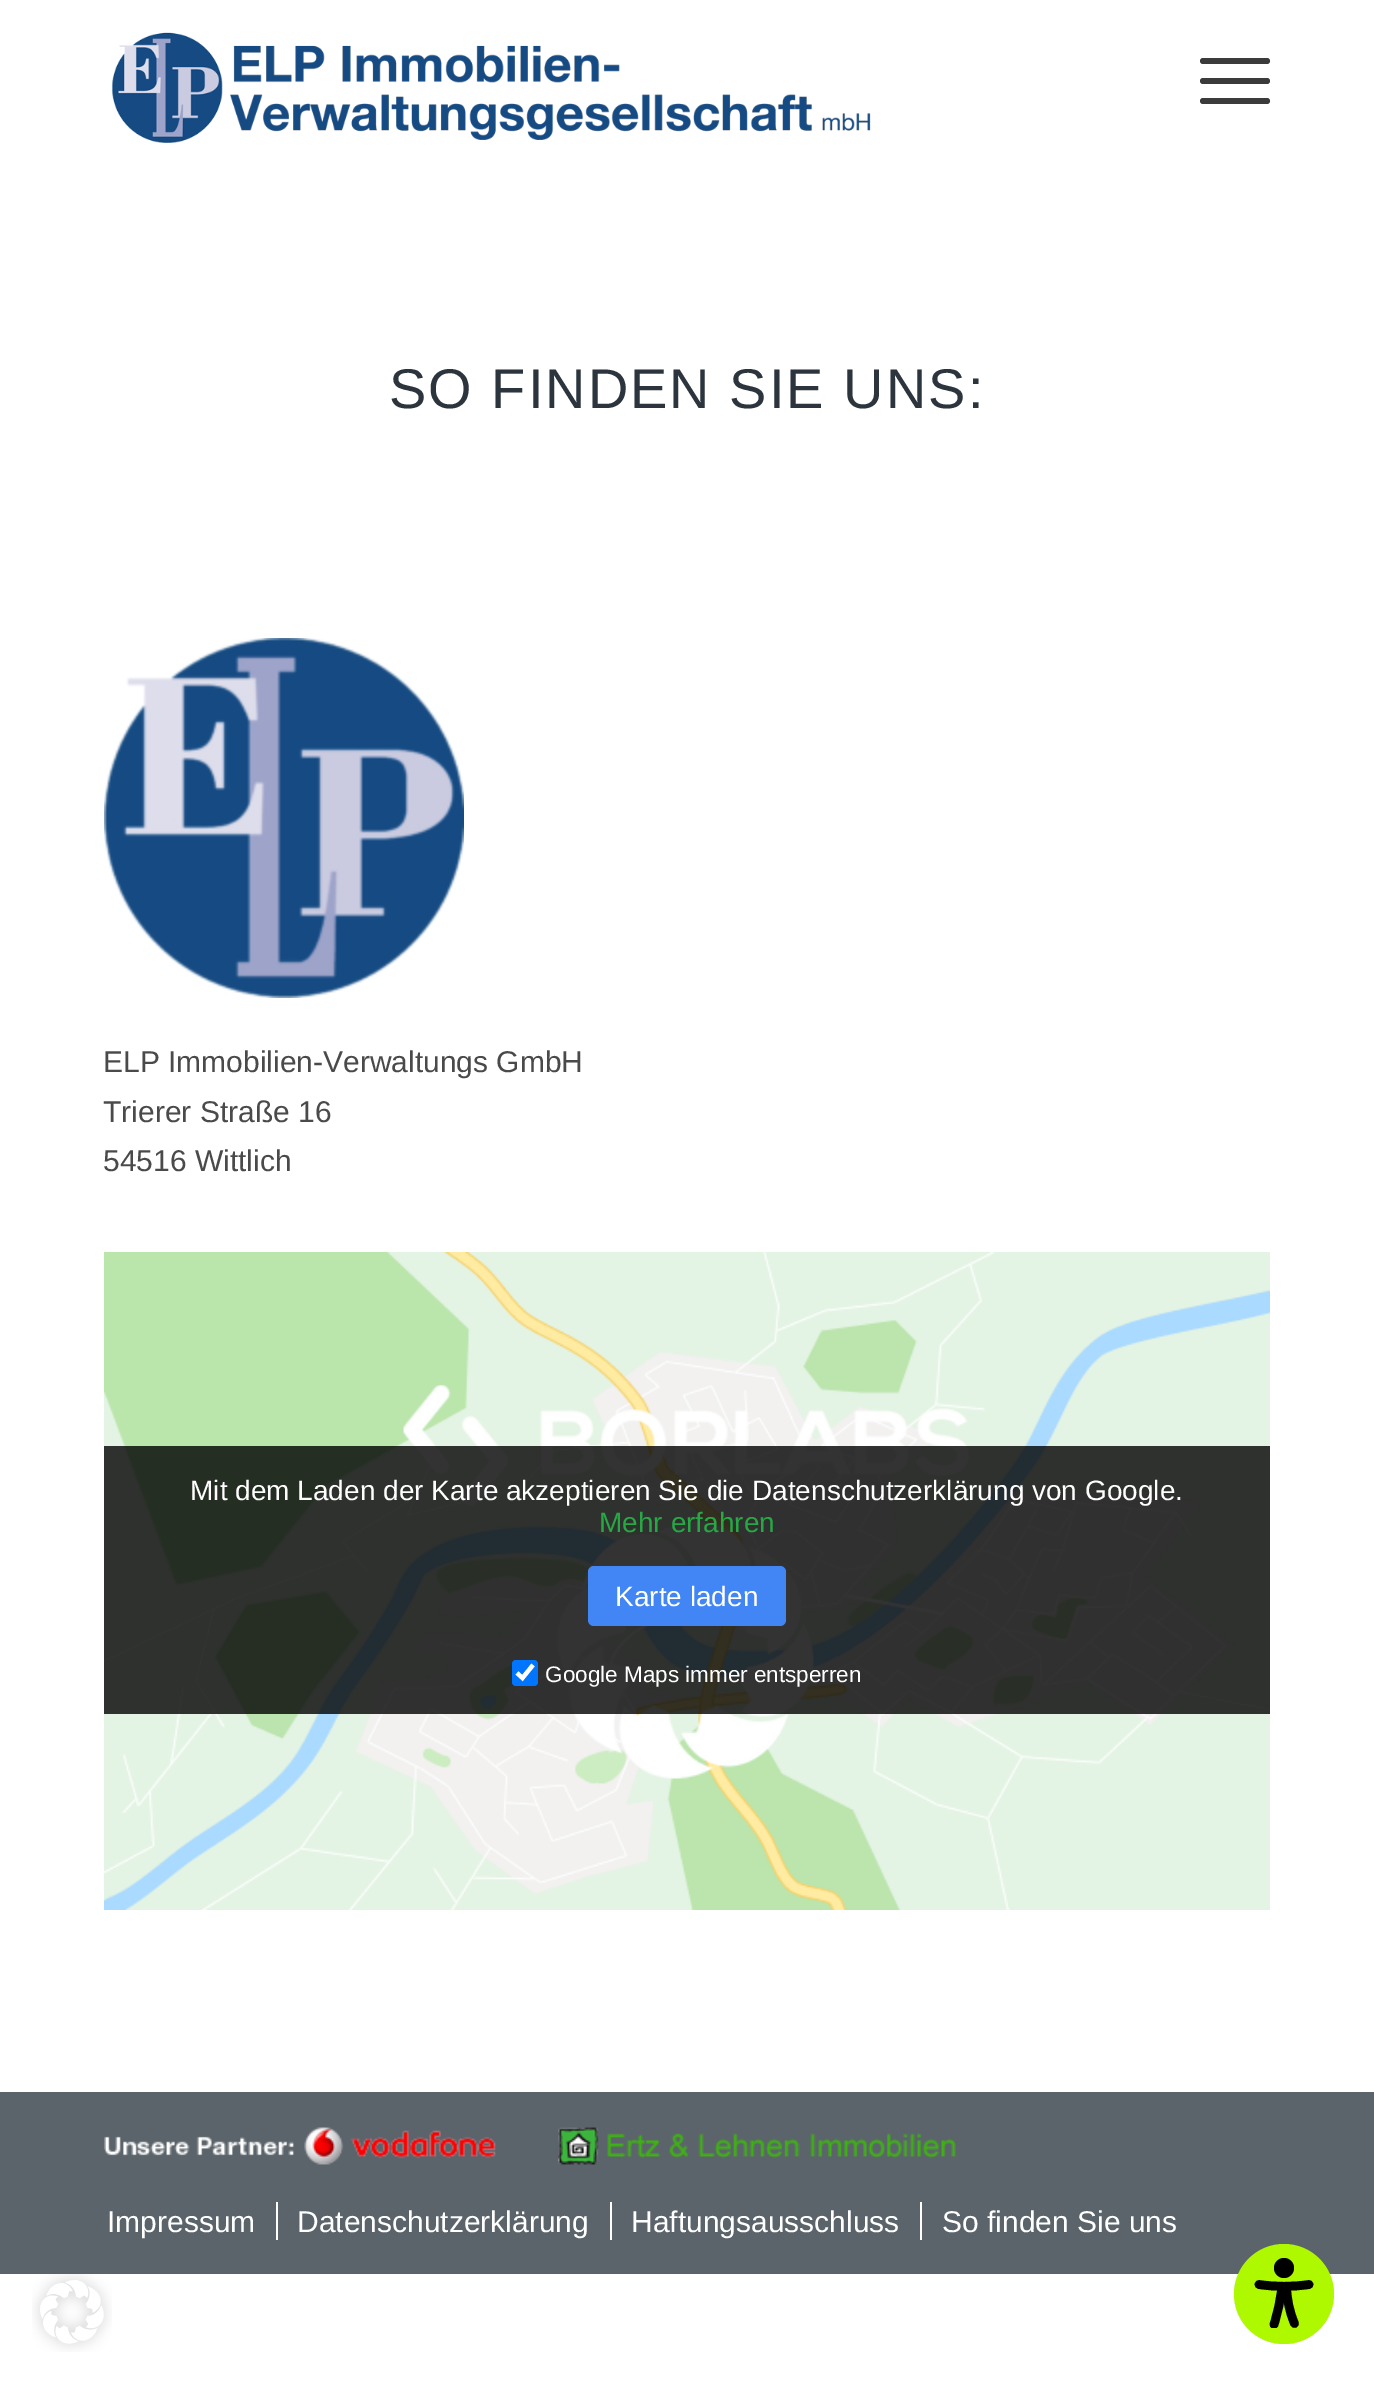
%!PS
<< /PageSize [1374 2383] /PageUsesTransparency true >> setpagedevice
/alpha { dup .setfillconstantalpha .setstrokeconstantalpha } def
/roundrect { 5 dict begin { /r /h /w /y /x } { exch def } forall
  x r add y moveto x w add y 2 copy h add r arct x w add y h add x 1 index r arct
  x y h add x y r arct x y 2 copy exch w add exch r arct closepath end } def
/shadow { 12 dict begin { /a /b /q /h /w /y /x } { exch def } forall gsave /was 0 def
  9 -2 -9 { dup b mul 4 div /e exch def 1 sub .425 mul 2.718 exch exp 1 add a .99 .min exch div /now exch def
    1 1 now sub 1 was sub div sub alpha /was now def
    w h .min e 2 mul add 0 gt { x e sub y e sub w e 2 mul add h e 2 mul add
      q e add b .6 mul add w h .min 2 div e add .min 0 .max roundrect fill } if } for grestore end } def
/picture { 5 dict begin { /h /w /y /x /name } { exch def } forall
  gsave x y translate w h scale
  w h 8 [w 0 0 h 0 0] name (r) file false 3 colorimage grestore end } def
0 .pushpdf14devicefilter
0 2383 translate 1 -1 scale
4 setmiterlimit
1 setgray
0 0 1374 2383 rectfill
(img1.rgb) 111 32 760 111 picture
0.231 setgray
1200 78 70 6 3 roundrect fill
1200 58 70 6 3 roundrect fill
1200 98 70 6 3 roundrect fill
/LiberationSans-Regular [56 0 0 -56 0 0] selectfont
0.173 0.208 0.239 setrgbcolor
389 408 moveto 2 0 (SO FINDEN SIE UNS:) ashow
(img2.rgb) 104 638 360 360 picture
/LiberationSans-Regular [30 0 0 -30 0 0] selectfont
0.29 setgray
103 1072 moveto (ELP Immobilien-Verwaltungs GmbH) show
103 1122 moveto (Trierer Straße 16) show
103 1171 moveto (54516 Wittlich) show
(img3.rgb) 104 1252 1166 658 picture
0.8 alpha
0 setgray
104 1446 1166 268 rectfill
/LiberationSans-Regular [28 0 0 -28 0 0] selectfont
1 alpha
1 setgray
190 1500 moveto (Mit dem Laden der Karte akzeptieren Sie die Datenschutzerklärung von Google.) show
0.157 0.655 0.271 setrgbcolor
599 1532 moveto (Mehr erfahren) show
0.259 0.522 0.957 setrgbcolor
588 1566 198 60 6 roundrect fill
1 setgray
615 1606 moveto (Karte laden) show
0 0.459 1 setrgbcolor
512 1660 26 26 4 roundrect fill
1 setgray
4.2 setlinewidth
newpath 517 1673 moveto 522.5 1678 lineto 533 1665 lineto stroke
/LiberationSans-Regular [22.5 0 0 -22.5 0 0] selectfont
545 1682 moveto (Google Maps immer entsperren) show
0.357 0.392 0.42 setrgbcolor
0 2092 1374 182 rectfill
(img4.rgb) 104 2127 392 38 picture
(img5.rgb) 558 2127 398 38 picture
/LiberationSans-Regular [30 0 0 -30 0 0] selectfont
1 setgray
107 2232 moveto (Impressum) show
276 2202 2 38 rectfill
297 2232 moveto (Datenschutzerklärung) show
610 2202 2 38 rectfill
631 2232 moveto (Haftungsausschluss) show
920 2202 2 38 rectfill
942 2232 moveto (So finden Sie uns) show
(img6.rgb) 32 2274 80 78 picture
gsave
newpath 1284 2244 moveto 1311.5 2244 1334 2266.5 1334 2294 curveto 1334 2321.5 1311.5 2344 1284 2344 curveto 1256.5 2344 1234 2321.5 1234 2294 curveto 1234 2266.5 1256.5 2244 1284 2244 curveto closepath clip newpath
0 setgray
1234 2252 100 100 50 8 0.1 shadow
grestore
0.682 0.976 0 setrgbcolor
newpath 1284 2294 50 0 360 arc closepath fill
0 setgray
newpath 1284 2268 10 0 360 arc closepath fill
8.7 setlinewidth
1 setlinecap
1 setlinejoin
newpath 1259 2284.5 moveto 1275.5 2287 1292.5 2287 1309 2284.5 curveto stroke
gsave
1254 2258 60 70 rectclip
newpath 1274 2324.5 moveto 1278 2312 1280.5 2299.5 1282 2287 curveto 1286.5 2287 lineto 1287 2299.5 1289.5 2312 1294.5 2323.5 curveto stroke
grestore
.poppdf14devicefilter showpage
